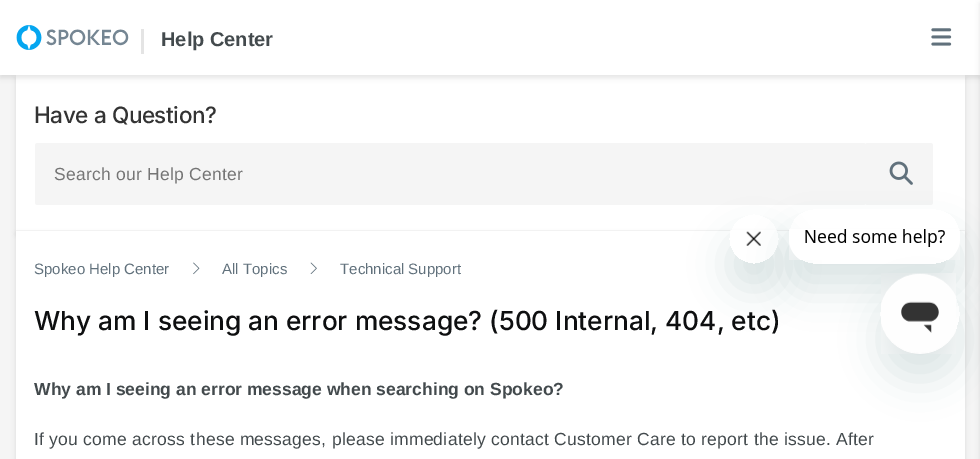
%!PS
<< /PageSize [980 459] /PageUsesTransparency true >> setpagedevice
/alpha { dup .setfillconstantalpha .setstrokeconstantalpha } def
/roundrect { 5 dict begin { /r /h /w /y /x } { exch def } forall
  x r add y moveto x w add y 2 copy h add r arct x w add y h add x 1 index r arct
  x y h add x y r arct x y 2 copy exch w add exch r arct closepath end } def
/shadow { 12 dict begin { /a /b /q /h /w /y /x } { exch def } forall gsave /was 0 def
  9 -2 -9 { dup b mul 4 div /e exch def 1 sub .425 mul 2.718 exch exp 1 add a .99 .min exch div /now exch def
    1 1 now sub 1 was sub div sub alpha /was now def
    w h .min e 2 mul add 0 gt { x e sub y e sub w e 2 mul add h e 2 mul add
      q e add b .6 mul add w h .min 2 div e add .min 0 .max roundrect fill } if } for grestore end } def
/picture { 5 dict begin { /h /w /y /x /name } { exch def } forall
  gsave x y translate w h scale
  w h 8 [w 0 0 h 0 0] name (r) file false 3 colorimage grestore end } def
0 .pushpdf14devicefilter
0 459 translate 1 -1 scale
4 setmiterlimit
0.961 setgray
0 0 980 459 rectfill
0 setgray
16 78 949 156 0 2.5 0.1 shadow
1 setgray
16 75 949 155 rectfill
0 setgray
0 3 980 75 0 2.5 0.1 shadow
1 setgray
0 0 980 75 rectfill
(img1.rgb) 16 25 113 25 picture
0.894 setgray
141 29 3 25 rectfill
/LiberationSans-Bold [20 0 0 -20 0 0] selectfont
0.263 0.29 0.302 setrgbcolor
161 46 moveto (Help Center) show
(img2.rgb) 931 28 21 18 picture
0 setgray
980 3 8 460 0 2.5 0.1 shadow
0.961 setgray
16 230 949 1 rectfill
/Inter-Medium [22.5 0 0 -22.5 0 0] selectfont
0.2 setgray
34 123 moveto -0.4 0 (Have a Question?) ashow
0.961 setgray
35 143 831 62 2.5 roundrect fill
/LiberationSans-Regular [17.5 0 0 -17.5 0 0] selectfont
0.459 setgray
54 180 moveto 0.25 0 (Search our Help Center) ashow
0.961 setgray
865 143 68 62 2.5 roundrect fill
(img3.rgb) 889 161 24 24 picture
0 setgray
16 234 949 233 0 2.5 0.1 shadow
1 setgray
16 231 949 228 rectfill
/LiberationSans-Regular [15 0 0 -15 0 0] selectfont
0.38 0.443 0.486 setrgbcolor
34 274 moveto (Spokeo Help Center) show
(img4.rgb) 193 262 7 13 picture
222 274 moveto (All Topics) show
(img5.rgb) 310 262 7 12 picture
340 274 moveto (Technical Support) show
/Inter-Medium [26.25 0 0 -26.25 0 0] selectfont
0.055 0.059 0.063 setrgbcolor
34 330 moveto (Why am I seeing an error message? \(500 Internal, 404, etc\)) show
/LiberationSans-Bold [17.5 0 0 -17.5 0 0] selectfont
0.263 0.29 0.302 setrgbcolor
34 395 moveto (Why am I seeing an error message when searching on Spokeo?) show
/LiberationSans-Regular [17.5 0 0 -17.5 0 0] selectfont
34 445 moveto 0.25 0 (If you come across these messages, please immediately contact Customer Care to report the issue. After) ashow
gsave
newpath 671 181 moveto 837 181 lineto 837 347 lineto 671 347 lineto closepath 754 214 moveto 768 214 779 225 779 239 curveto 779 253 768 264 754 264 curveto 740 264 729 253 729 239 curveto 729 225 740 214 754 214 curveto closepath eoclip newpath
0.09 0.286 0.302 setrgbcolor
729 239 50 50 25 19 0.15 shadow
grestore
(img7.rgb) 730 230 47 16 picture
gsave
newpath 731 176 moveto 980 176 lineto 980 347 lineto 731 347 lineto closepath 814 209 moveto 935 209 lineto 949 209 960 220 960 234 curveto 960 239 lineto 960 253 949 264 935 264 curveto 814 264 lineto 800 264 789 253 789 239 curveto 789 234 lineto 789 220 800 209 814 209 curveto closepath eoclip newpath
0.09 0.286 0.302 setrgbcolor
789 234 171 55 25 19 0.15 shadow
grestore
(img6.rgb) 789 229 171 31 picture
gsave
newpath 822 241 moveto 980 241 lineto 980 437 lineto 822 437 lineto closepath 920 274 moveto 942 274 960 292 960 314 curveto 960 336 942 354 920 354 curveto 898 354 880 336 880 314 curveto 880 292 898 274 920 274 curveto closepath eoclip newpath
0.09 0.286 0.302 setrgbcolor
880 299 80 80 40 19 0.15 shadow
grestore
(img8.rgb) 881 273 75 81 picture
.poppdf14devicefilter showpage
